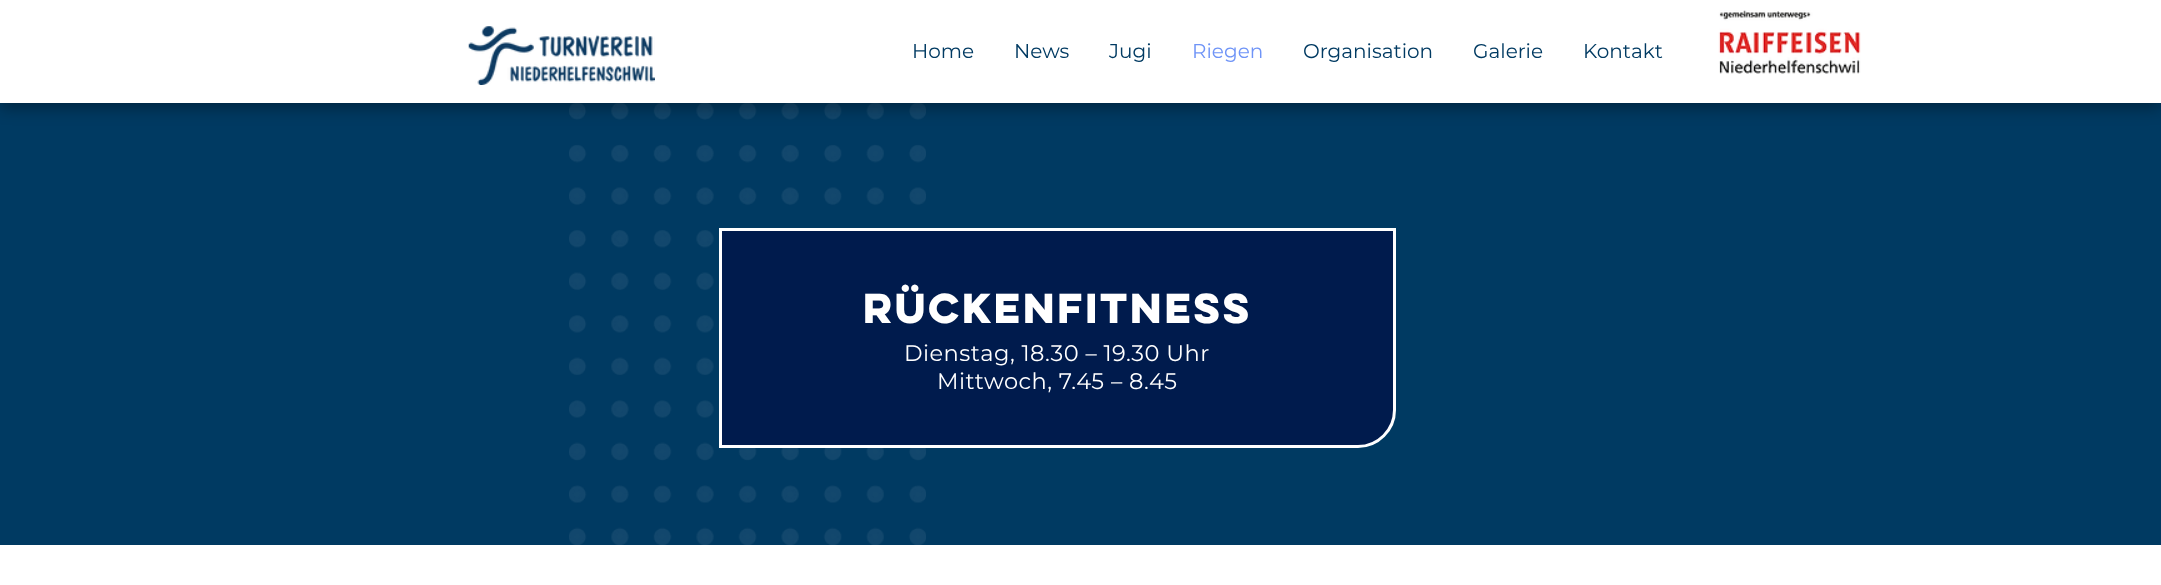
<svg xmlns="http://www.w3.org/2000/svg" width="2161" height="585">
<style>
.a{font:20px Montserrat;fill:#003a62}
.b{font:20px Montserrat;fill:#6f94f7}
.c{font:bold 37.5px 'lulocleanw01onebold';letter-spacing:-5.6px;fill:#fff}
.d{font:22.5px Montserrat;letter-spacing:0.45px;fill:#fff}
</style>
<rect width="100%" height="100%" fill="#003a62"/>
<image href="3.png" x="569" y="103" width="357" height="442"/>
<path fill="#00000059" filter="blur(8px)" d="M0 5h2161v103H0z"/>
<path fill="#fff" d="M0 0h2161v103H0z"/>
<image href="1.png" x="468" y="26" width="187" height="59"/>
<image href="2.png" x="1718" y="10" width="143" height="64"/>
<path fill="#001b4d" stroke="#fff" stroke-width="3" d="M720.5 229.5h674v180.5c0 20-16.5 36.5-36.5 36.5h-637.5z"/>
<path fill="#fff" d="M0 545h2161v40H0z"/>
<text class="a" x="912" y="58">Home</text>
<text class="a" x="1014" y="58">News</text>
<text class="a" x="1109" y="58">Jugi</text>
<text class="b" x="1192" y="58">Riegen</text>
<text class="a" x="1303" y="58">Organisation</text>
<text class="a" x="1473" y="58">Galerie</text>
<text class="a" x="1583" y="58">Kontakt</text>
<text class="c" x="863" y="323">Rückenfitness</text>
<text class="d" x="904" y="361">Dienstag, 18.30 – 19.30 Uhr</text>
<text class="d" x="937" y="389">Mittwoch, 7.45 – 8.45</text>
</svg>
